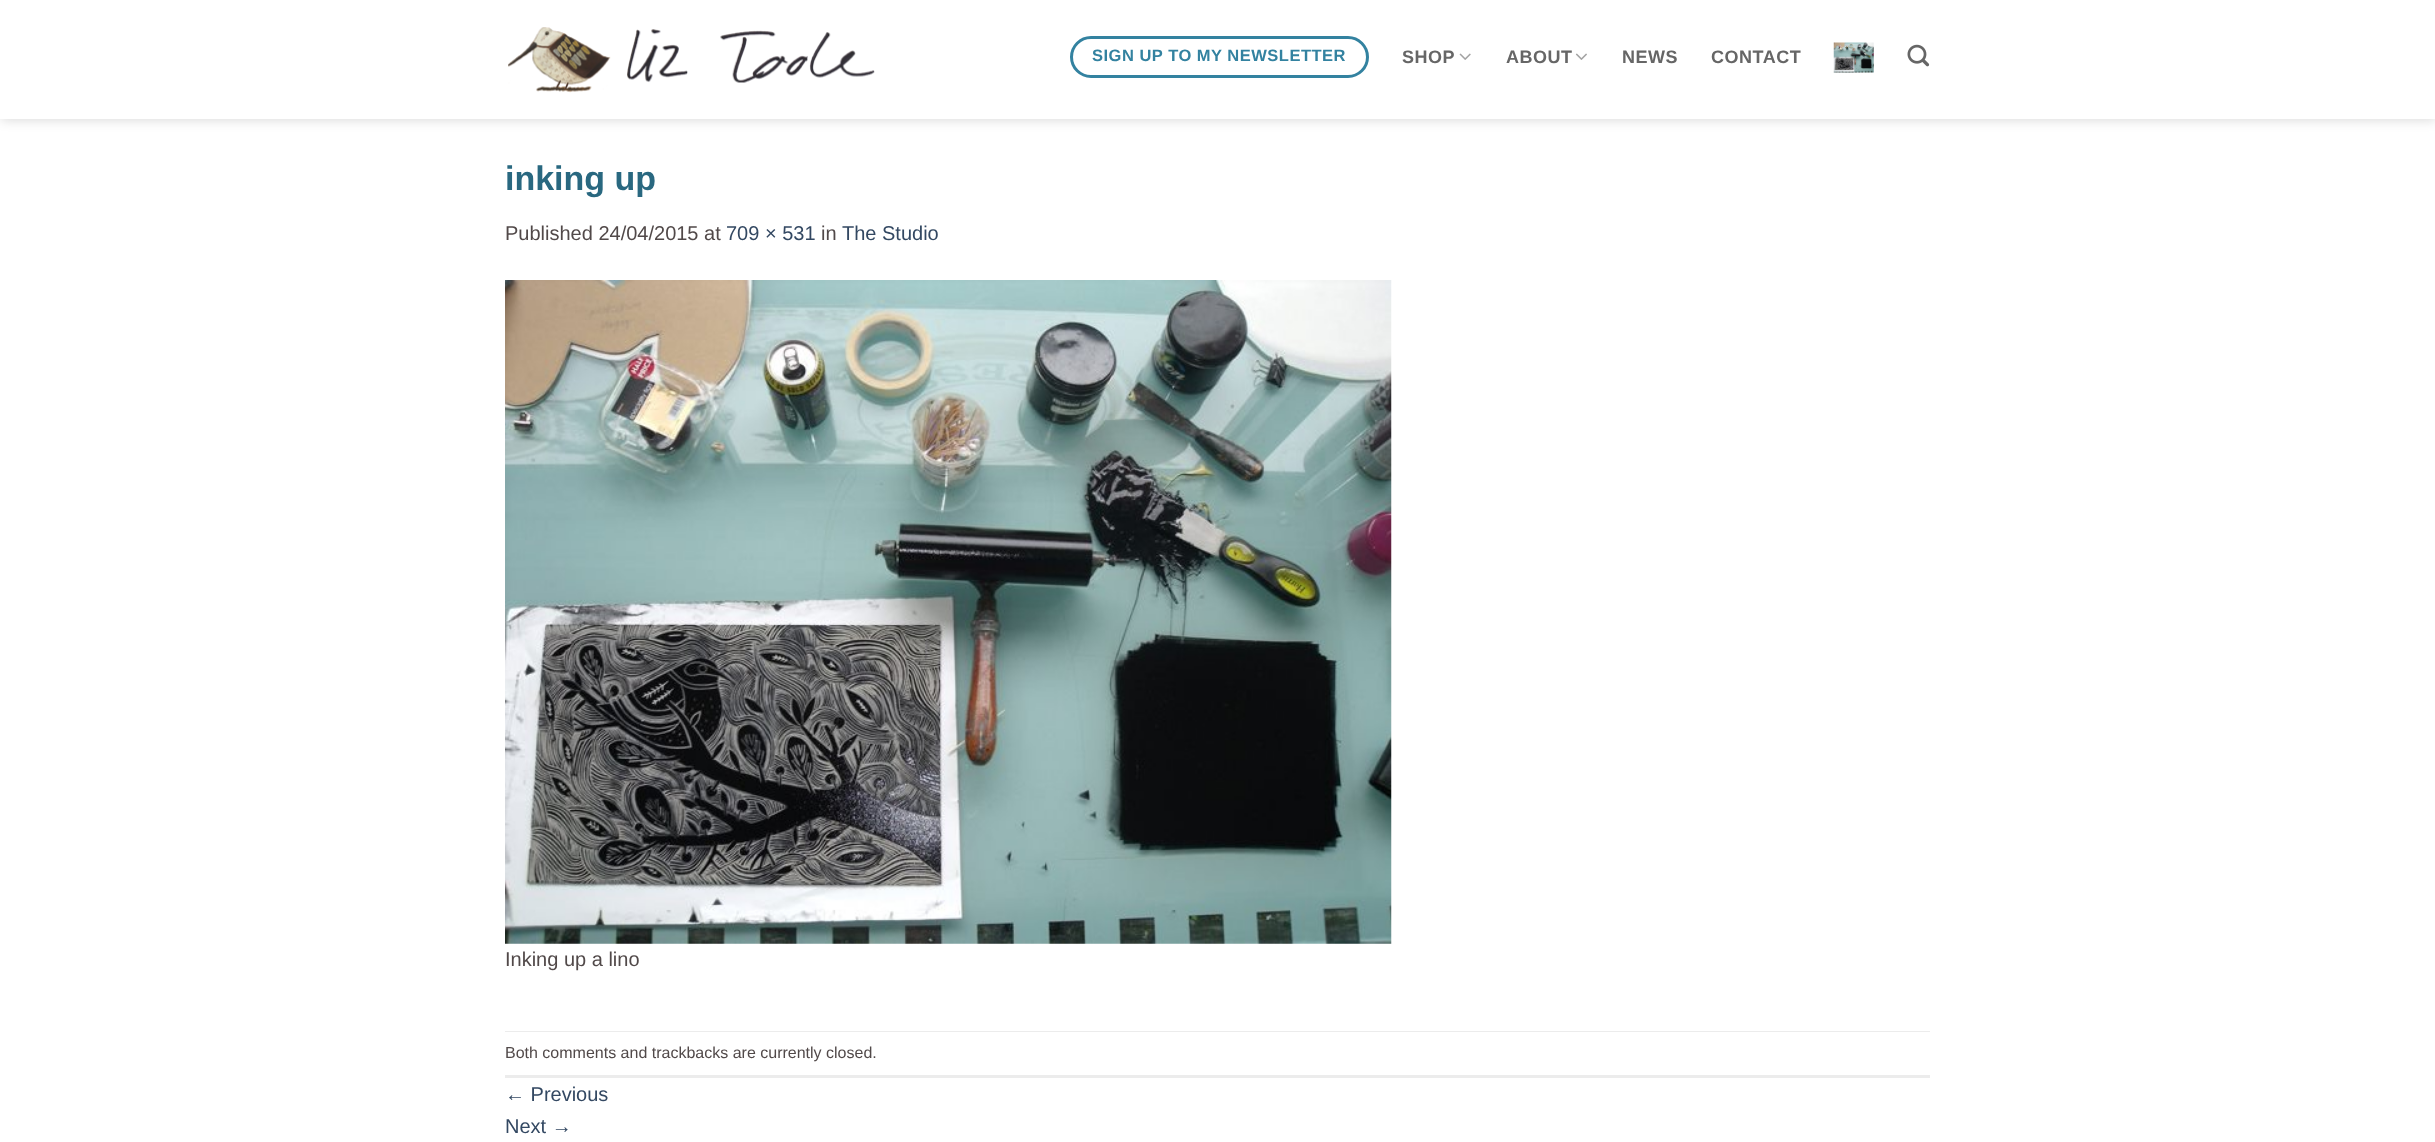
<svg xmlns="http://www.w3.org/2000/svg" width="2435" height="1142">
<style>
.a{font:bold 16.5px Liberation Sans;letter-spacing:0.5px;fill:#3382a0}
.b{font:bold 18px Liberation Sans;letter-spacing:0.5px;fill:#666}
.c{font:bold 34px Liberation Sans;fill:#296880}
.d{font:20px Liberation Sans;fill:#514949}
.e{font:20px Liberation Sans;fill:#334862}
.f{font:16px Liberation Sans;fill:#514949}
</style>
<rect width="100%" height="100%" fill="#fff"/>
<path fill="#00000026" filter="blur(6px)" d="M1 1h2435v119H1z"/>
<path fill="#fff" d="M0 0h2435v119H0z"/>
<image href="1.png" x="508" y="27" width="367" height="66"/>
<rect fill="none" stroke="#3382a0" stroke-width="3" x="1071.5" y="37.5" width="296" height="39" rx="19.5"/>
<image href="2.png" x="1459" y="53" width="12" height="7"/>
<image href="3.png" x="1575" y="53" width="12" height="7"/>
<image href="4.png" x="1833" y="42" width="41" height="31"/>
<image href="5.png" x="1907" y="44" width="23" height="23"/>
<image href="6.png" x="505" y="280" width="887" height="664"/>
<path fill="#ececec" d="M505 1031h1425v1H505z"/>
<path fill="#ececec" d="M505 1075h1425v3H505z"/>
<text class="a" x="1092" y="61">SIGN UP TO MY NEWSLETTER</text>
<text class="b" x="1402" y="63">SHOP</text>
<text class="b" x="1506" y="63">ABOUT</text>
<text class="b" x="1622" y="63">NEWS</text>
<text class="b" x="1711" y="63">CONTACT</text>
<text class="c" x="505" y="190">inking up</text>
<text class="d" x="505" y="240">Published 24/04/2015 at</text>
<text class="e" x="726" y="240">709 × 531</text>
<text class="d" x="821" y="240">in</text>
<text class="e" x="842" y="240">The Studio</text>
<text class="d" x="505" y="966">Inking up a lino</text>
<text class="f" x="505" y="1058">Both comments and trackbacks are currently closed.</text>
<text class="e" x="505" y="1101">← Previous</text>
<text class="e" x="505" y="1133">Next →</text>
</svg>
